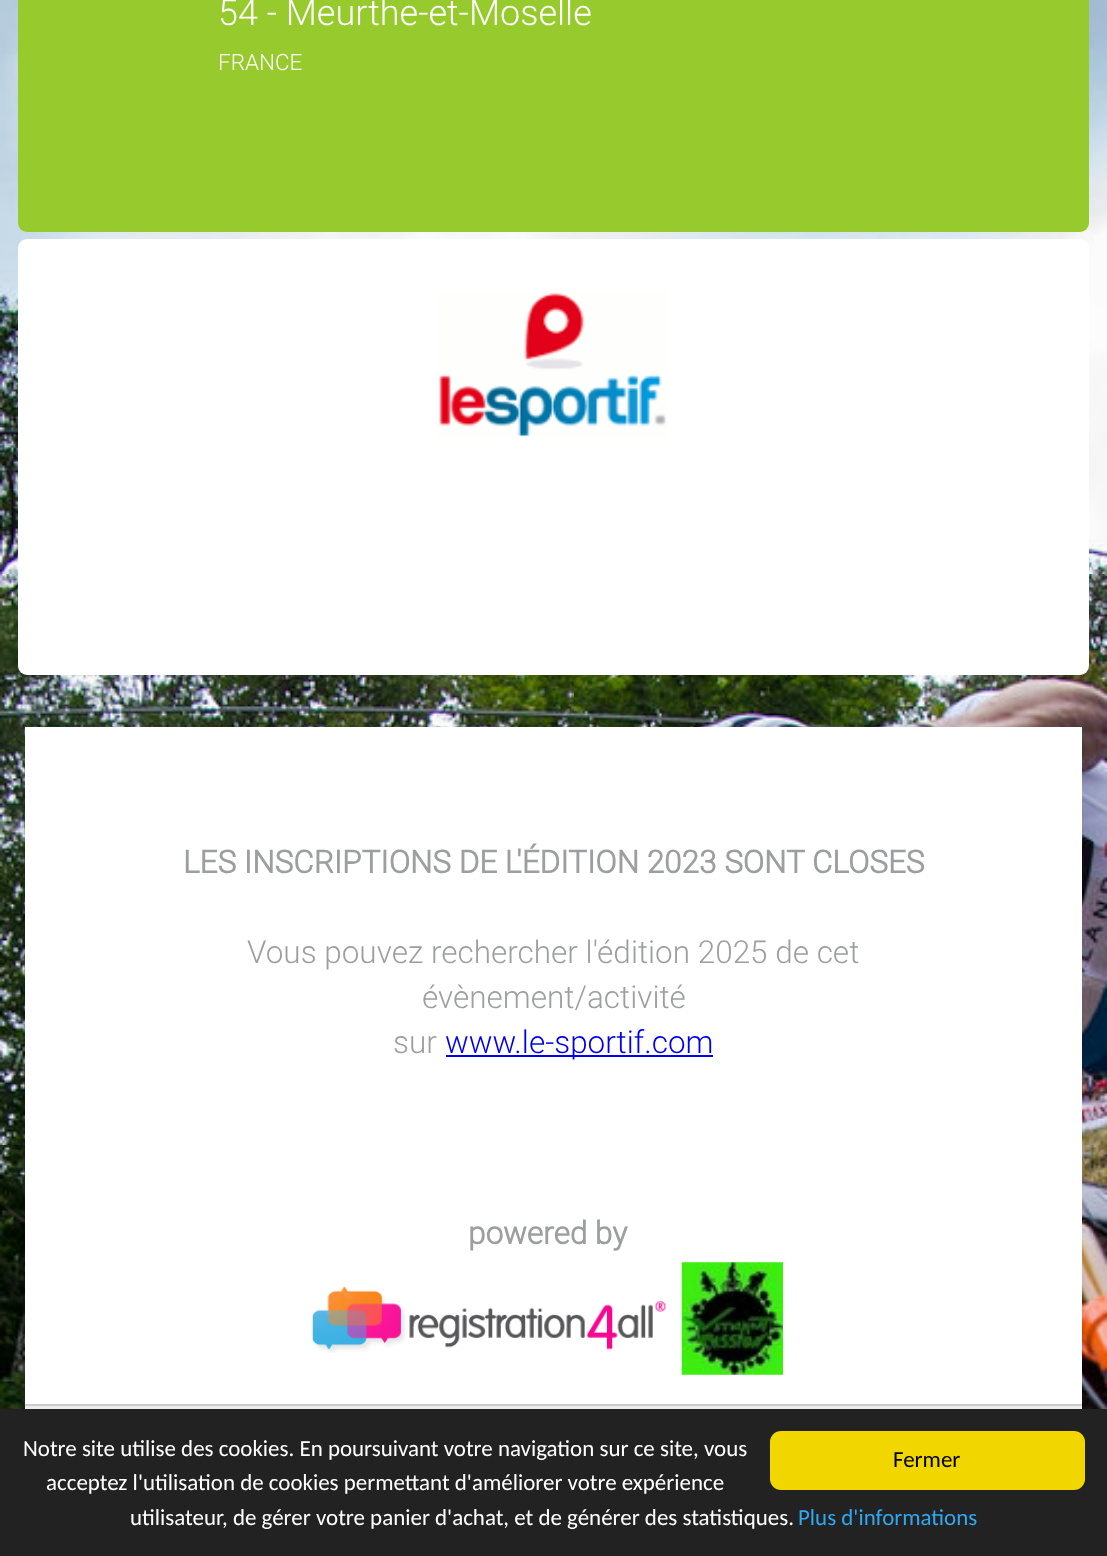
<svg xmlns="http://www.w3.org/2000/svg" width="1107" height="1556">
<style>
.a{font:300 36px Roboto;fill:#fff}
.b{font:300 22.5px Roboto;fill:#fff}
.c{font:bold 31.5px Roboto;fill:#9c9e9f}
.d{font:300 31.5px Roboto;fill:#9c9e9f}
.e{font:300 31.5px Roboto;fill:#00e}
.f{font:22.95px Carlito;fill:#fff}
.g{font:22.95px Carlito;fill:#31a8f0}
.h{font:22.95px Carlito;fill:#000}
</style>
<rect width="100%" height="100%" fill="#fff"/>
<image href="1.png" x="0" y="0" width="1107" height="1409"/>
<rect fill="#96ca2d" x="18" y="-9" width="1071" height="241" rx="9"/>
<rect fill="#fff" x="18" y="239" width="1071" height="436" rx="9"/>
<image href="2.png" x="438" y="291" width="230" height="147"/>
<path fill="#fff" d="M25 727h1057v677H25z"/>
<path fill="#00e" d="M446 1055h267v2H446z"/>
<image href="3.png" x="312" y="1286" width="354" height="67"/>
<image href="4.png" x="681" y="1262" width="102" height="113"/>
<path fill="#ececec" d="M25 1406h1057v3H25z"/>
<path fill="#ccc" d="M25 1404h1057v2H25z"/>
<path fill="#222" d="M0 1409h1107v147H0z"/>
<rect fill="#f1d600" x="770" y="1431" width="315" height="59" rx="11"/>
<text class="a" x="218" y="25">54 - Meurthe-et-Moselle</text>
<text class="b" x="218" y="70">FRANCE</text>
<text class="c" x="183" y="873">LES INSCRIPTIONS DE L'ÉDITION 2023 SONT CLOSES</text>
<text class="d" x="247" y="963">Vous pouvez rechercher l'édition 2025 de cet</text>
<text class="d" x="422" y="1008">évènement/activité</text>
<text class="d" x="393" y="1053">sur</text>
<text class="e" x="445" y="1053">www.le-sportif.com</text>
<text class="c" x="468" y="1244">powered by</text>
<text class="f" x="23" y="1456">Notre site utilise des cookies. En poursuivant votre navigation sur ce site, vous</text>
<text class="f" x="46" y="1490">acceptez l'utilisation de cookies permettant d'améliorer votre expérience</text>
<text class="f" x="130" y="1525">utilisateur, de gérer votre panier d'achat, et de générer des statistiques.</text>
<text class="g" x="798" y="1525">Plus d'informations</text>
<text class="h" x="893" y="1467">Fermer</text>
</svg>
